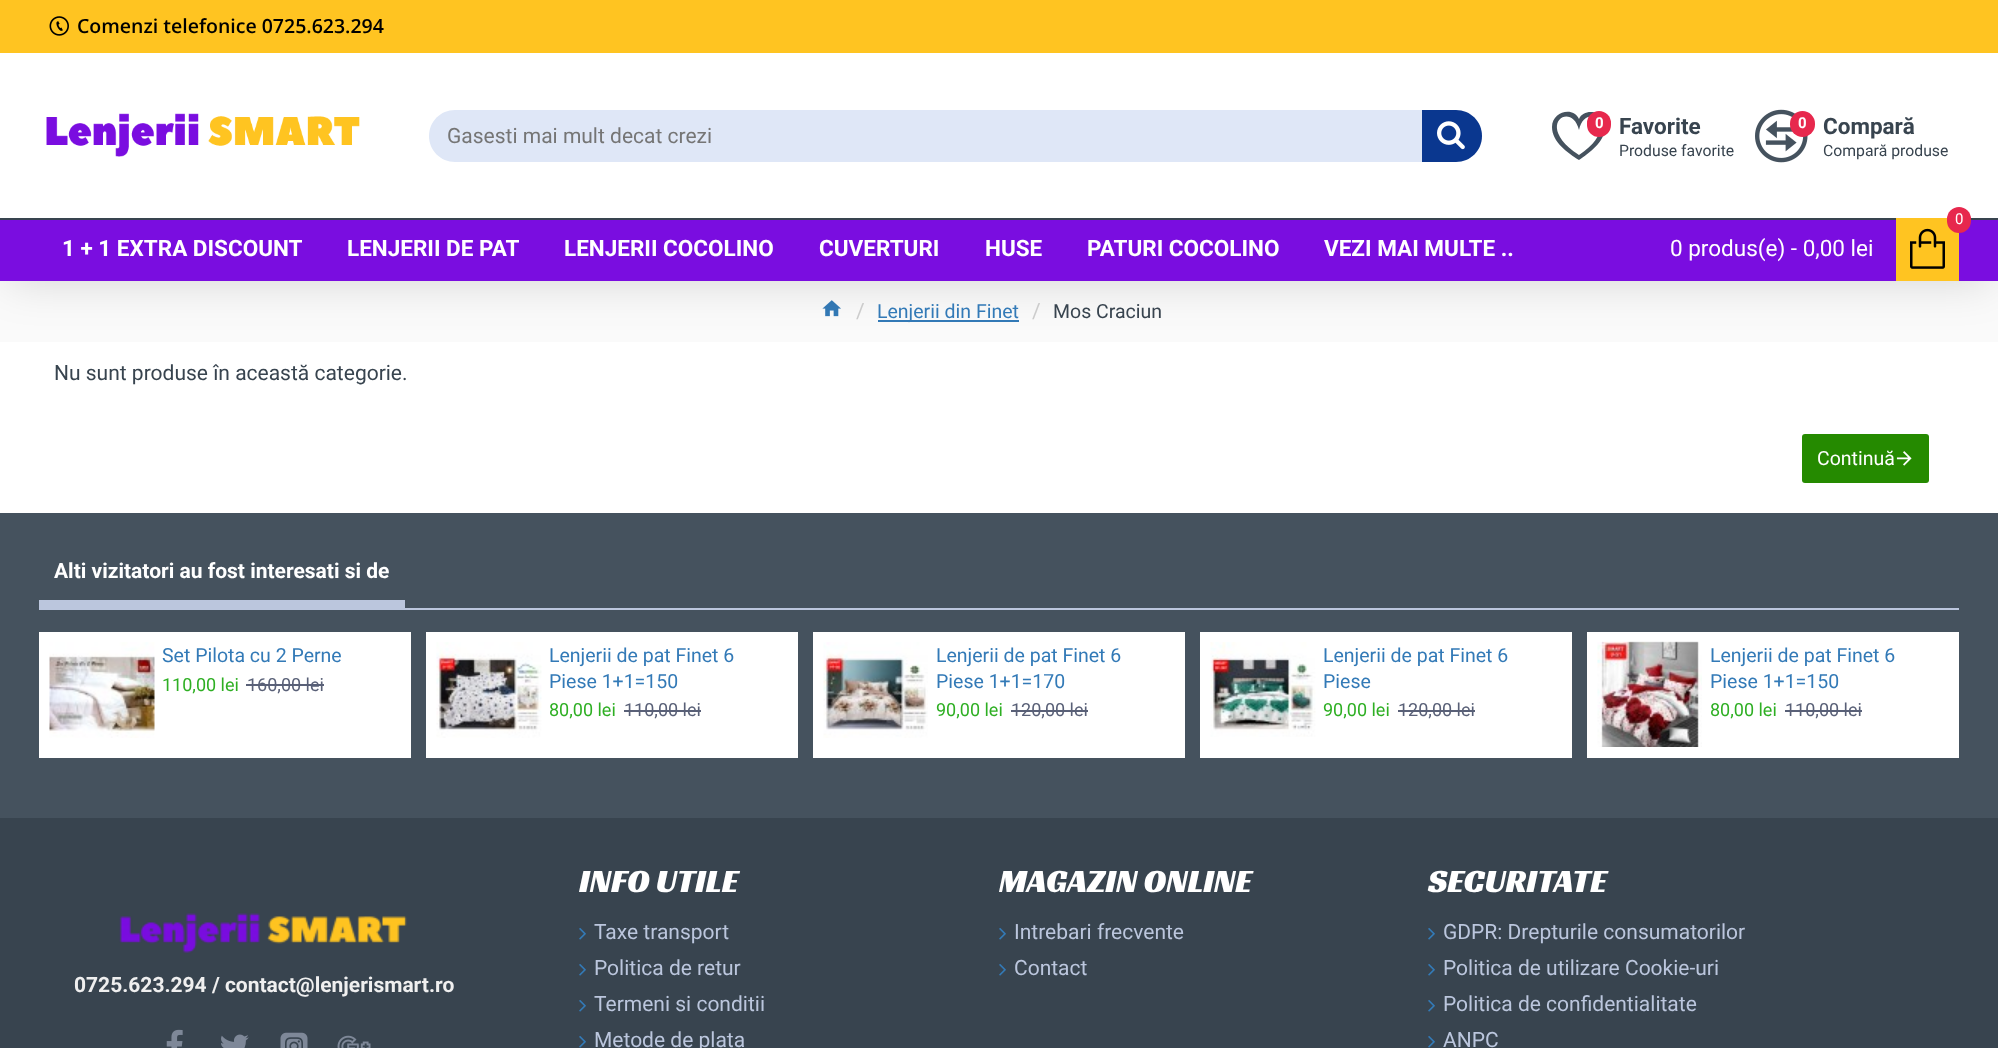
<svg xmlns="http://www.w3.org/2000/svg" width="1998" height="1048">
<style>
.a{font:600 19.5px Open Sans;fill:#000}
.b{font:21px Roboto;fill:#757575}
.c{font:bold 15px Roboto;fill:#fff}
.d{font:bold 22.5px Roboto;fill:#38444f}
.e{font:15.75px Roboto;fill:#38444f}
.f{font:15px Roboto;fill:#fff}
.g{font:22.5px Roboto;fill:#fff}
.h{font:bold 22.5px Roboto;fill:#fff}
.i{font:21px Roboto;fill:#ccc}
.j{font:19.5px Roboto;fill:#337ab7}
.k{font:19.5px Roboto;fill:#38444f}
.l{font:21px Roboto;fill:#38444f}
.m{font:19.5px Roboto;fill:#fff}
.n{font:bold 21px Roboto;fill:#fff}
.o{font:18px Roboto;fill:#2eaf23}
.p{font:18px Roboto;fill:#596077}
.q{font:bold 21px Roboto;fill:#efefef}
.r{font:33px Racing Sans One;fill:#fff}
.s{font:21px Roboto;fill:#bbc6dd}
</style>
<rect width="100%" height="100%" fill="#fff"/>
<path fill="#fafafa" d="M0 281h1998v61H0z"/>
<image href="6.png" x="822" y="300" width="19" height="17"/>
<path fill="#337ab7" d="M878 320h141v2H878z"/>
<path fill="#00000026" filter="blur(22.5px)" d="M8 15h1983v266H8z"/>
<path fill="#fff" d="M0 53h1998v165H0z"/>
<path fill="#ffc421" d="M0 0h1998v53H0z"/>
<image href="1.png" x="49" y="16" width="20" height="20"/>
<image href="2.png" x="46" y="113" width="314" height="44"/>
<path fill="#dfe7f7" d="M455 110h967v52h-967c-14.5 0-26-11.5-26-26c0-14.5 11.5-26 26-26z"/>
<path fill="#0a378f" d="M1422 110h34c14.5 0 26 11.5 26 26c0 14.5-11.5 26-26 26h-34z"/>
<image href="3.png" x="1437" y="121" width="28" height="29"/>
<path fill="#45525e" d="M1579 130c6-30 45-5 0 25c-46-30-7-55 0-25zm-27-3c0 15 16 26 27 33c10-7 26-18 26-33c0-3-1-6-3-9c-5-8-19-8-23 1c-6-13-27-7-27 8z"/>
<rect fill="#e7284d" x="1587" y="111" width="24" height="26" rx="12"/>
<image href="4.png" x="1755" y="109" width="53" height="54"/>
<rect fill="#e7284d" x="1790" y="111" width="25" height="26" rx="12.5"/>
<path fill="#7a0de0" d="M0 220h1998v61H0z"/>
<path fill="#38444f" d="M0 218h1998v2H0z"/>
<path fill="#ffc421" d="M1896 218h63v63H1896z"/>
<rect fill="#e7284d" x="1947" y="207" width="24" height="26" rx="12"/>
<image href="5.png" x="1910" y="228" width="35" height="41"/>
<rect fill="#258a00" x="1802" y="434" width="127" height="49" rx="3"/>
<image href="7.png" x="1896" y="451" width="16" height="15"/>
<path fill="#38444f" d="M0 818h1998v230H0z"/>
<path fill="#45525e" d="M0 513h1998v305H0z"/>
<path fill="#bbc6dd" d="M39 608h1920v2H39z"/>
<path fill="#bbc6dd" d="M39 600h366v8H39z"/>
<path fill="#fff" d="M39 632h372v126H39z"/>
<image href="8.png" x="49" y="642" width="106" height="96"/>
<path fill="#596077" d="M246 684h78v2H246z"/>
<path fill="#fff" d="M426 632h372v126H426z"/>
<image href="9.png" x="436" y="642" width="106" height="96"/>
<path fill="#596077" d="M624 710h77v2H624z"/>
<path fill="#fff" d="M813 632h372v126H813z"/>
<image href="10.png" x="823" y="642" width="105" height="96"/>
<path fill="#596077" d="M1011 710h77v2H1011z"/>
<path fill="#fff" d="M1200 632h372v126H1200z"/>
<image href="11.png" x="1210" y="642" width="106" height="95"/>
<path fill="#596077" d="M1398 710h77v2H1398z"/>
<path fill="#fff" d="M1587 632h372v126H1587z"/>
<image href="12.png" x="1597" y="641" width="105" height="106"/>
<path fill="#596077" d="M1785 710h77v2H1785z"/>
<image href="13.png" x="119" y="913" width="288" height="40"/>
<image href="14.png" x="166" y="1029" width="17" height="19"/>
<image href="15.png" x="221" y="1034" width="28" height="14"/>
<image href="16.png" x="280" y="1032" width="28" height="16"/>
<image href="17.png" x="337" y="1035" width="34" height="13"/>
<image href="18.png" x="579" y="928" width="7" height="12"/>
<image href="18.png" x="579" y="964" width="7" height="12"/>
<image href="18.png" x="579" y="1000" width="7" height="12"/>
<image href="18.png" x="579" y="1036" width="7" height="12"/>
<image href="18.png" x="999" y="928" width="7" height="12"/>
<image href="18.png" x="999" y="964" width="7" height="12"/>
<image href="18.png" x="1428" y="928" width="7" height="12"/>
<image href="18.png" x="1428" y="964" width="7" height="12"/>
<image href="18.png" x="1428" y="1000" width="7" height="12"/>
<image href="18.png" x="1428" y="1036" width="7" height="12"/>
<text class="a" x="77" y="33">Comenzi telefonice 0725.623.294</text>
<text class="b" x="447" y="143">Gasesti mai mult decat crezi</text>
<text class="c" x="1595" y="128">0</text>
<text class="d" x="1619" y="134">Favorite</text>
<text class="e" x="1619" y="156">Produse favorite</text>
<text class="c" x="1798" y="128">0</text>
<text class="d" x="1823" y="134">Compară</text>
<text class="e" x="1823" y="156">Compară produse</text>
<text class="f" x="1955" y="224">0</text>
<text class="g" x="1670" y="256">0 produs(e) - 0,00 lei</text>
<text class="h" x="62" y="256">1 + 1 EXTRA DISCOUNT</text>
<text class="h" x="347" y="256">LENJERII DE PAT</text>
<text class="h" x="564" y="256">LENJERII COCOLINO</text>
<text class="h" x="819" y="256">CUVERTURI</text>
<text class="h" x="985" y="256">HUSE</text>
<text class="h" x="1087" y="256">PATURI COCOLINO</text>
<text class="h" x="1324" y="256">VEZI MAI MULTE ..</text>
<text class="i" x="856" y="318">/</text>
<text class="j" x="877" y="318">Lenjerii din Finet</text>
<text class="i" x="1032" y="318">/</text>
<text class="k" x="1053" y="318">Mos Craciun</text>
<text class="l" x="54" y="380">Nu sunt produse în această categorie.</text>
<text class="m" x="1817" y="465">Continuă</text>
<text class="n" x="54" y="578">Alti vizitatori au fost interesati si de</text>
<text class="j" x="162" y="662">Set Pilota cu 2 Perne</text>
<text class="o" x="162" y="691">110,00 lei</text>
<text class="p" x="247" y="691">160,00 lei</text>
<text class="j" x="549" y="662">Lenjerii de pat Finet 6</text>
<text class="j" x="549" y="688">Piese 1+1=150</text>
<text class="o" x="549" y="716">80,00 lei</text>
<text class="p" x="624" y="716">110,00 lei</text>
<text class="j" x="936" y="662">Lenjerii de pat Finet 6</text>
<text class="j" x="936" y="688">Piese 1+1=170</text>
<text class="o" x="936" y="716">90,00 lei</text>
<text class="p" x="1011" y="716">120,00 lei</text>
<text class="j" x="1323" y="662">Lenjerii de pat Finet 6</text>
<text class="j" x="1323" y="688">Piese</text>
<text class="o" x="1323" y="716">90,00 lei</text>
<text class="p" x="1398" y="716">120,00 lei</text>
<text class="j" x="1710" y="662">Lenjerii de pat Finet 6</text>
<text class="j" x="1710" y="688">Piese 1+1=150</text>
<text class="o" x="1710" y="716">80,00 lei</text>
<text class="p" x="1785" y="716">110,00 lei</text>
<text class="q" x="74" y="992">0725.623.294 / contact@lenjerismart.ro</text>
<text class="r" x="579" y="892">INFO UTILE</text>
<text class="s" x="594" y="939">Taxe transport</text>
<text class="s" x="594" y="975">Politica de retur</text>
<text class="s" x="594" y="1011">Termeni si conditii</text>
<text class="s" x="594" y="1047">Metode de plata</text>
<text class="r" x="999" y="892">MAGAZIN ONLINE</text>
<text class="s" x="1014" y="939">Intrebari frecvente</text>
<text class="s" x="1014" y="975">Contact</text>
<text class="r" x="1428" y="892">SECURITATE</text>
<text class="s" x="1443" y="939">GDPR: Drepturile consumatorilor</text>
<text class="s" x="1443" y="975">Politica de utilizare Cookie-uri</text>
<text class="s" x="1443" y="1011">Politica de confidentialitate</text>
<text class="s" x="1443" y="1047">ANPC</text>
</svg>
